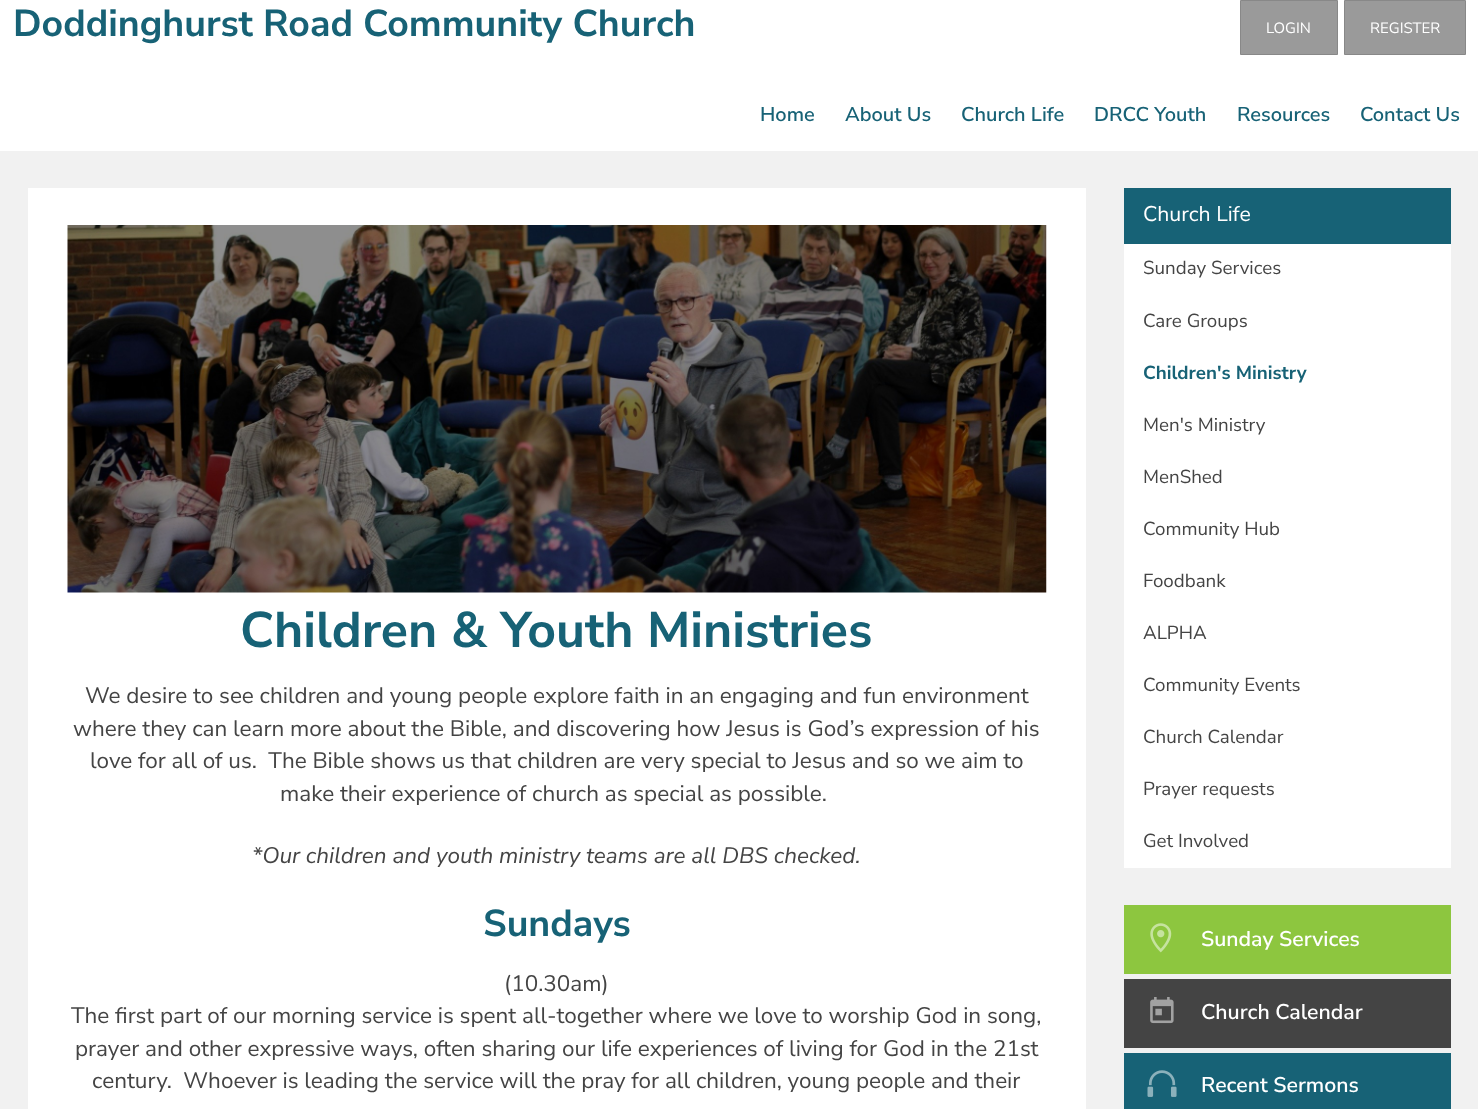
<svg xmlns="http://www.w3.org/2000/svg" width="1478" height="1109">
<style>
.a{font:bold 37.5px Nunito Sans;fill:#176276}
.b{font:15px Nunito Sans;fill:#fff}
.c{font:600 20px Nunito Sans;fill:#176276}
.d{font:bold 50px Nunito Sans;fill:#176276}
.e{font:22.5px Nunito Sans;fill:#444}
.f{font:italic 200 22.5px Nunito Sans;fill:#444}
.g{font:21.25px Nunito Sans;fill:#fff}
.h{font:18.75px Nunito Sans;fill:#444}
.i{font:bold 18.75px Nunito Sans;fill:#176276}
.j{font:600 21.25px Nunito Sans;fill:#fff}
</style>
<rect width="100%" height="100%" fill="#f1f1f1"/>
<path fill="#fff" d="M0 0h1478v151H0z"/>
<path fill="#9a9a9a" stroke="#888" d="M1240.5 0.5h97v54H1240.5z"/>
<path fill="#9a9a9a" stroke="#888" d="M1344.5 0.5h121v54H1344.5z"/>
<path fill="#fff" d="M28 188h1058v921H28z"/>
<image href="1.png" x="67" y="225" width="980" height="368"/>
<path fill="#fff" d="M1124 244h327v624H1124z"/>
<path fill="#176276" d="M1124 188h327v56H1124z"/>
<path fill="#8dc63f" d="M1124 905h327v69H1124z"/>
<image href="2.png" x="1150" y="923" width="22" height="30"/>
<path fill="#444" d="M1124 979h327v69H1124z"/>
<image href="3.png" x="1150" y="997" width="24" height="27"/>
<path fill="#176276" d="M1124 1053h327v56H1124z"/>
<image href="4.png" x="1147" y="1070" width="30" height="27"/>
<text class="a" x="13" y="36">Doddinghurst Road Community Church</text>
<text class="b" x="1266" y="33">LOGIN</text>
<text class="b" x="1370" y="33">REGISTER</text>
<text class="c" x="760" y="121">Home</text>
<text class="c" x="845" y="121">About Us</text>
<text class="c" x="961" y="121">Church Life</text>
<text class="c" x="1094" y="121">DRCC Youth</text>
<text class="c" x="1237" y="121">Resources</text>
<text class="c" x="1360" y="121">Contact Us</text>
<text class="d" x="240" y="647">Children &amp; Youth Ministries</text>
<text class="e" x="85" y="703">We desire to see children and young people explore faith in an engaging and fun environment</text>
<text class="e" x="73" y="736">where they can learn more about the Bible, and discovering how Jesus is God’s expression of his</text>
<text class="e" xml:space="preserve" x="90" y="768">love for all of us.  The Bible shows us that children are very special to Jesus and so we aim to</text>
<text class="e" x="280" y="801">make their experience of church as special as possible.</text>
<text class="f" x="252" y="863">*Our children and youth ministry teams are all DBS checked.</text>
<text class="a" x="483" y="936">Sundays</text>
<text class="e" x="504" y="991">(10.30am)</text>
<text class="e" x="71" y="1023">The first part of our morning service is spent all-together where we love to worship God in song,</text>
<text class="e" x="75" y="1056">prayer and other expressive ways, often sharing our life experiences of living for God in the 21st</text>
<text class="e" xml:space="preserve" x="92" y="1088">century.  Whoever is leading the service will the pray for all children, young people and their</text>
<text class="g" x="1143" y="221">Church Life</text>
<text class="h" x="1143" y="274">Sunday Services</text>
<text class="h" x="1143" y="327">Care Groups</text>
<text class="i" x="1143" y="379">Children's Ministry</text>
<text class="h" x="1143" y="431">Men's Ministry</text>
<text class="h" x="1143" y="483">MenShed</text>
<text class="h" x="1143" y="535">Community Hub</text>
<text class="h" x="1143" y="587">Foodbank</text>
<text class="h" x="1143" y="639">ALPHA</text>
<text class="h" x="1143" y="691">Community Events</text>
<text class="h" x="1143" y="743">Church Calendar</text>
<text class="h" x="1143" y="795">Prayer requests</text>
<text class="h" x="1143" y="847">Get Involved</text>
<text class="j" x="1201" y="946">Sunday Services</text>
<text class="j" x="1201" y="1019">Church Calendar</text>
<text class="j" x="1201" y="1092">Recent Sermons</text>
</svg>
